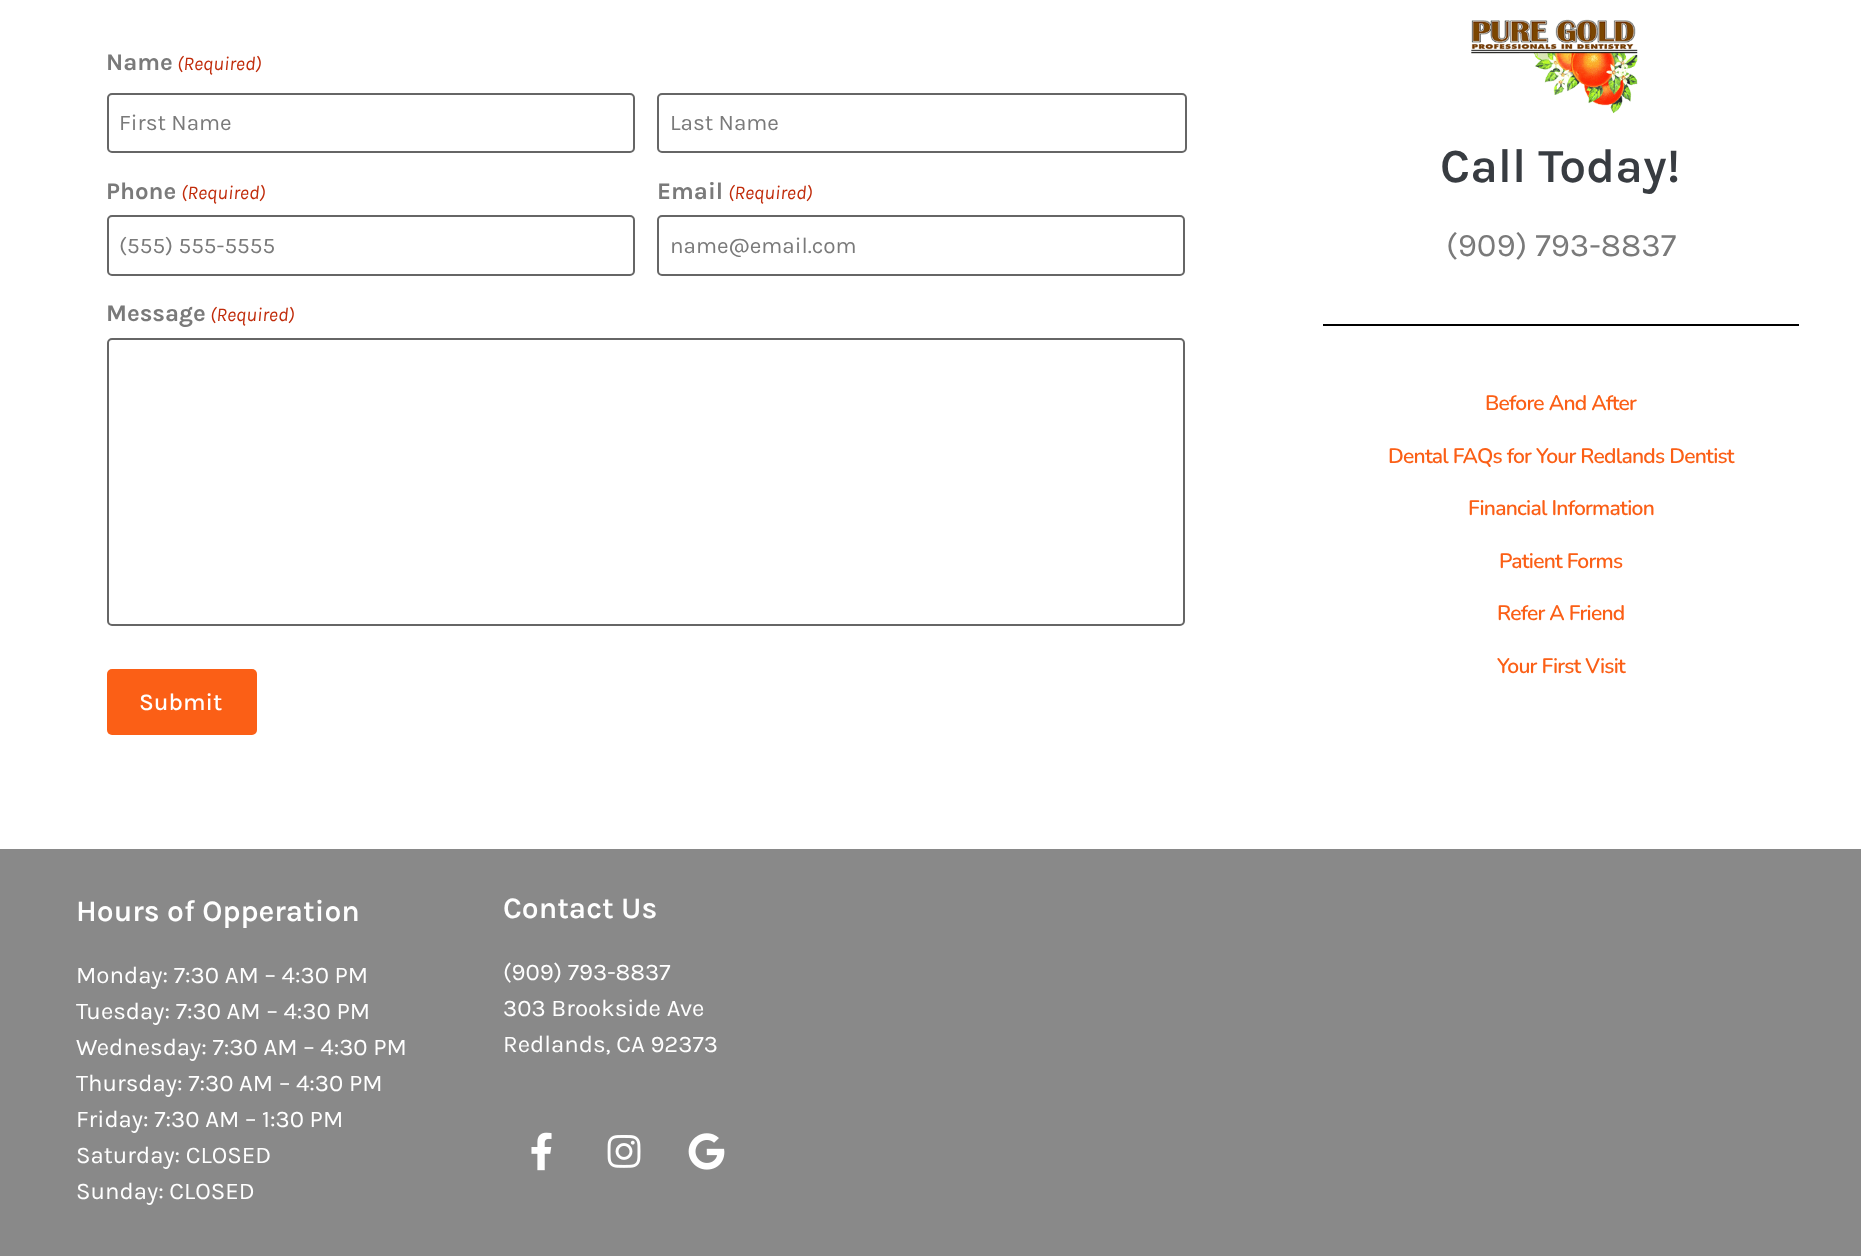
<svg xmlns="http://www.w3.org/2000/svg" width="1861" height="1256">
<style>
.a{font:bold 24px Karla;fill:#7a7a7a}
.b{font:italic 19.5px Karla;fill:#c02b0a}
.c{font:22.5px Karla;fill:#7a7a7a}
.d{font:500 24px Karla;fill:#fff}
.e{font:600 48px Karla;fill:#383c41}
.f{font:33px Karla;fill:#7a7a7a}
.g{font:600 21px Nunito;letter-spacing:-0.75px;fill:#fb5f16}
.h{font:600 30px Karla;fill:#fff}
.i{font:24px Karla;fill:#fff}
</style>
<rect width="100%" height="100%" fill="#fff"/>
<rect fill="none" stroke="#666" stroke-width="2" x="108" y="94" width="526" height="58" rx="4"/>
<rect fill="none" stroke="#666" stroke-width="2" x="658" y="94" width="528" height="58" rx="4"/>
<rect fill="none" stroke="#666" stroke-width="2" x="108" y="216" width="526" height="59" rx="4"/>
<rect fill="none" stroke="#666" stroke-width="2" x="658" y="216" width="526" height="59" rx="4"/>
<rect fill="none" stroke="#666" stroke-width="2" x="108" y="339" width="1076" height="286" rx="4"/>
<rect fill="#fb5f16" x="107" y="669" width="150" height="66" rx="5"/>
<image href="1.png" x="1471" y="19" width="167" height="95"/>
<path fill="#000" d="M1323 324h476v2H1323z"/>
<path fill="#898989" d="M0 849h1861v407H0z"/>
<image href="2.png" x="531" y="1132" width="21" height="39"/>
<image href="3.png" x="607" y="1135" width="34" height="33"/>
<image href="4.png" x="688" y="1133" width="37" height="37"/>
<text class="a" x="106" y="70">Name</text>
<text class="b" x="177" y="70">(Required)</text>
<text class="c" x="119" y="130">First Name</text>
<text class="c" x="670" y="130">Last Name</text>
<text class="a" x="106" y="199">Phone</text>
<text class="b" x="181" y="199">(Required)</text>
<text class="c" x="119" y="253">(555) 555-5555</text>
<text class="a" x="657" y="199">Email</text>
<text class="b" x="728" y="199">(Required)</text>
<text class="c" x="670" y="253">name@email.com</text>
<text class="a" x="106" y="321">Message</text>
<text class="b" x="210" y="321">(Required)</text>
<text class="d" x="139" y="710">Submit</text>
<text class="e" x="1440" y="182">Call Today!</text>
<text class="f" x="1446" y="256">(909) 793-8837</text>
<text class="g" x="1485" y="410">Before And After</text>
<text class="g" x="1388" y="463">Dental FAQs for Your Redlands Dentist</text>
<text class="g" x="1468" y="515">Financial Information</text>
<text class="g" x="1499" y="568">Patient Forms</text>
<text class="g" x="1497" y="620">Refer A Friend</text>
<text class="g" x="1497" y="673">Your First Visit</text>
<text class="h" x="76" y="921">Hours of Opperation</text>
<text class="i" x="76" y="983">Monday: 7:30 AM – 4:30 PM</text>
<text class="i" x="76" y="1019">Tuesday: 7:30 AM – 4:30 PM</text>
<text class="i" x="76" y="1055">Wednesday: 7:30 AM – 4:30 PM</text>
<text class="i" x="76" y="1091">Thursday: 7:30 AM – 4:30 PM</text>
<text class="i" x="76" y="1127">Friday: 7:30 AM – 1:30 PM</text>
<text class="i" x="76" y="1163">Saturday: CLOSED</text>
<text class="i" x="76" y="1199">Sunday: CLOSED</text>
<text class="h" x="503" y="918">Contact Us</text>
<text class="i" x="503" y="980">(909) 793-8837</text>
<text class="i" x="503" y="1016">303 Brookside Ave</text>
<text class="i" x="503" y="1052">Redlands, CA 92373</text>
</svg>
